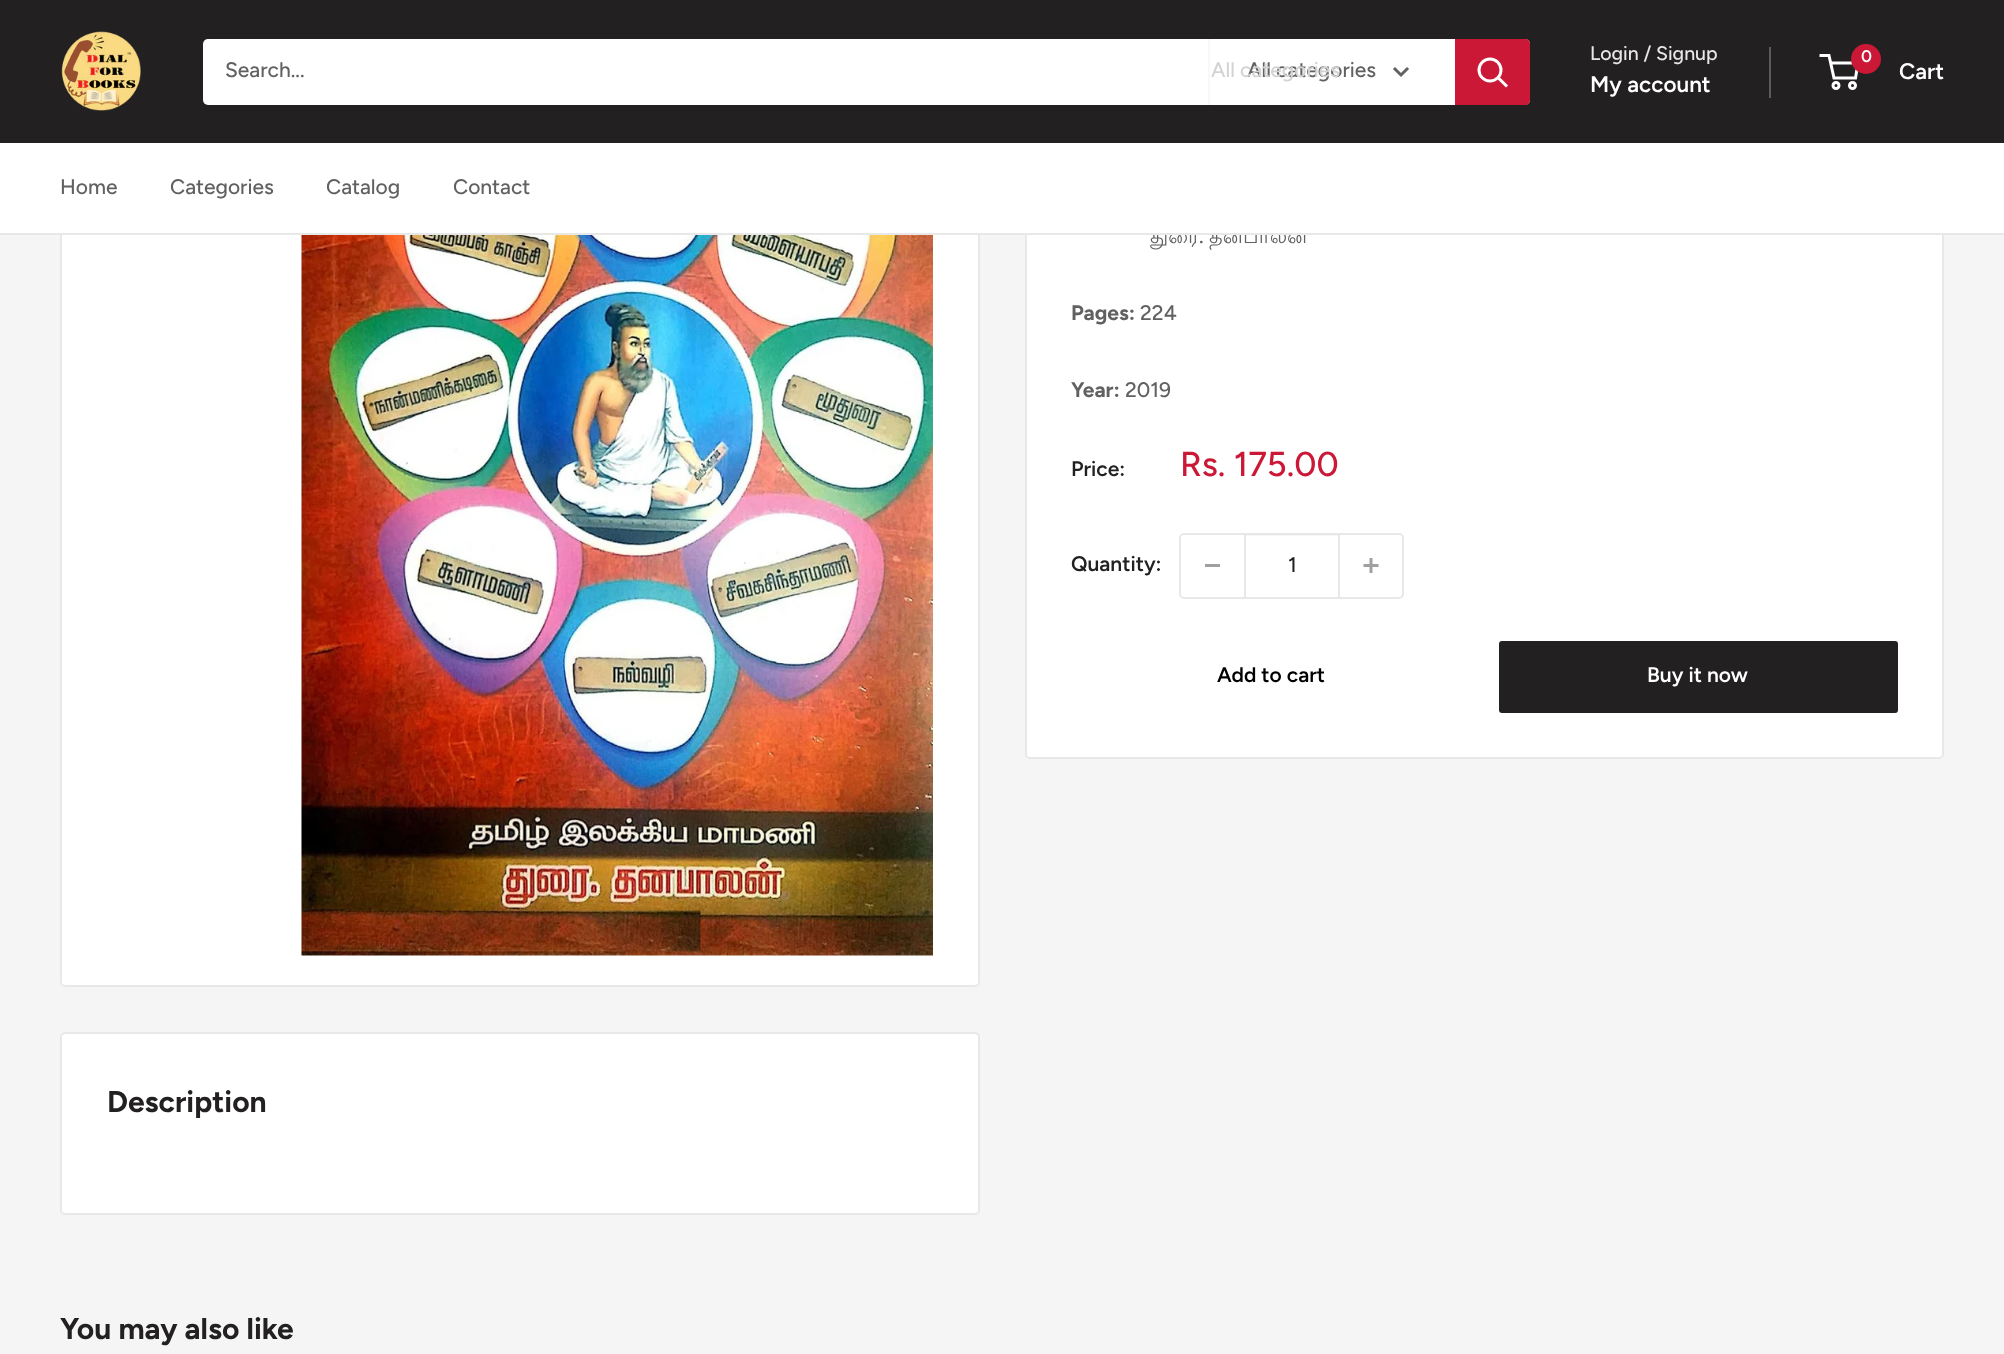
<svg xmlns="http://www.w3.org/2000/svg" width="2004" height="1354">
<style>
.a{font:500 21px Figtree;fill:#616161}
.b{font:500 21px Figtree;fill:#d3d3d3}
.c{font:500 19.5px Figtree;fill:#e8e8e8}
.d{font:600 22.5px Figtree;fill:#fff}
.e{font:600 17px Figtree;fill:#fff}
.f{font:21px Lohit Tamil;fill:#616161}
.g{font:bold 21px Figtree;fill:#616161}
.h{font:600 21px Figtree;fill:#222021}
.i{font:500 34.5px Figtree;fill:#cb1836}
.j{font:500 21px Figtree;fill:#222021}
.k{font:600 21px Figtree;fill:#000}
.l{font:600 21px Figtree;fill:#fff}
.m{font:bold 30px Figtree;fill:#222021}
</style>
<rect width="100%" height="100%" fill="#f5f5f5"/>
<rect fill="#fff" stroke="#e8e8e8" stroke-width="2" x="61" y="-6" width="918" height="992" rx="4"/>
<rect fill="#fff" stroke="#e8e8e8" stroke-width="2" x="1026" y="1" width="917" height="757" rx="4"/>
<path fill="#222021" d="M0 0h2004v143H0z"/>
<image href="1.png" x="61" y="31" width="80" height="80"/>
<rect fill="#fff" x="203" y="39" width="1327" height="66" rx="5"/>
<path fill="#f8f8f8" d="M1208 39h2v66H1208z"/>
<path fill="none" stroke="#616161" stroke-width="3" stroke-linecap="square" d="M1407 69l-6 6l-6-6"/>
<path fill="#cb1836" d="M1455 39h70c3 0 5 2 5 5v56c0 3-2 5-5 5h-70z"/>
<path fill="none" stroke="#fff" stroke-width="3" stroke-linecap="square" d="M1506 85.5l-7.5-7.5"/>
<circle fill="none" stroke="#fff" stroke-width="3" cx="1490" cy="70" r="11"/>
<path fill="#5d5c5d" d="M1769 47h2v51H1769z"/>
<circle fill="none" stroke="#fff" stroke-width="3" cx="1836" cy="85.5" r="3"/>
<circle fill="none" stroke="#fff" stroke-width="3" cx="1852.5" cy="85.5" r="3"/>
<path fill="none" stroke="#fff" stroke-width="3" d="M1830.5 63h27.5l-2.5 15h-21.5l-5-22.5h-9.5"/>
<circle fill="#cb1836" cx="1866" cy="59" r="15"/>
<image href="2.png" x="301" y="235" width="632" height="721"/>
<rect fill="none" stroke="#e8e8e8" stroke-width="2" x="1180" y="534" width="223" height="64" rx="4"/>
<path fill="#a0a0a0" d="M1205 564h15v3H1205z"/>
<path fill="#e8e8e866" d="M1245 535h93v1H1245z"/>
<path fill="#e8e8e8" d="M1338 534h2v63H1338z"/>
<path fill="#e8e8e8" d="M1244 534h2v63H1244z"/>
<image href="3.png" x="1363" y="558" width="16" height="15"/>
<rect fill="#222021" x="1499" y="641" width="399" height="72" rx="3"/>
<rect fill="#fff" stroke="#e8e8e8" stroke-width="2" x="61" y="1033" width="918" height="181" rx="4"/>
<text class="a" x="225" y="77">Search...</text>
<text class="a" x="1247" y="77">All categories</text>
<text class="b" x="1211" y="77">All categories</text>
<text class="c" x="1590" y="60">Login / Signup</text>
<text class="d" x="1590" y="92">My account</text>
<text class="e" x="1861" y="62">0</text>
<text class="d" x="1899" y="79">Cart</text>
<text class="f" x="1150" y="243">துரை</text>
<text class="a" x="1199" y="243">.</text>
<text class="f" x="1209" y="243">தனபாலன்</text>
<path fill="#fff" d="M0 143h2004v90H0z"/>
<text class="a" x="453" y="194">Contact</text>
<text class="a" x="326" y="194">Catalog</text>
<text class="a" x="170" y="194">Categories</text>
<text class="a" x="60" y="194">Home</text>
<path fill="#e8e8e8" d="M0 233h2004v2H0z"/>
<text class="g" x="1071" y="320">Pages:</text>
<text class="a" x="1140" y="320">224</text>
<text class="g" x="1071" y="397">Year:</text>
<text class="a" x="1125" y="397">2019</text>
<text class="h" x="1071" y="476">Price:</text>
<text class="i" x="1180" y="476">Rs. 175.00</text>
<text class="h" x="1071" y="571">Quantity:</text>
<text class="j" x="1288" y="572">1</text>
<text class="k" x="1217" y="682">Add to cart</text>
<text class="l" x="1647" y="682">Buy it now</text>
<text class="m" x="107" y="1112">Description</text>
<text class="m" x="60" y="1339">You may also like</text>
</svg>
